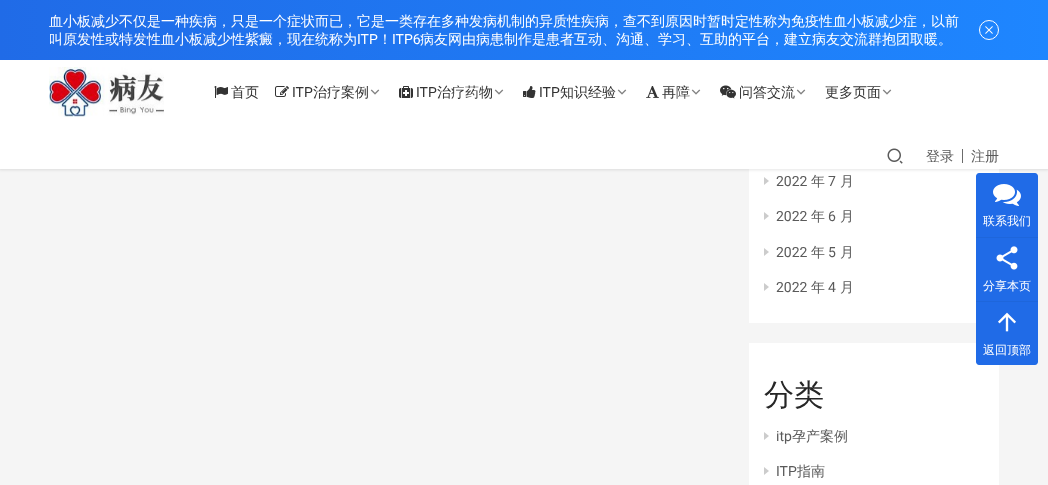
<svg xmlns="http://www.w3.org/2000/svg" width="1048" height="485">
<style>
.a{font:500 14px WenQuanYi Zen Hei;fill:#fff}
.b{font:14px Roboto;fill:#fff}
.c{font:500 14px WenQuanYi Zen Hei;fill:#333}
.d{font:14px Roboto;fill:#333}
.e{font:500 14px WenQuanYi Zen Hei;fill:#5a5a5a}
.f{font:14px Roboto;fill:#5a5a5a}
.g{font:500 30px WenQuanYi Zen Hei;fill:#262626}
.h{font:500 12px WenQuanYi Zen Hei;fill:#fff}
</style>
<defs>
<linearGradient id="g1" gradientUnits="userSpaceOnUse" x1="0" y1="30" x2="1048" y2="30"><stop offset="0" stop-color="#206be7"/><stop offset="1" stop-color="#1e86ff"/></linearGradient>
</defs>
<rect width="100%" height="100%" fill="#f5f5f5"/>
<path fill="#fff" d="M749 169h250v154H749z"/>
<path fill="#0000001a" filter="blur(1.5px)" d="M-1 59h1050v111H-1z"/>
<path fill="url(#g1)" d="M0 0h1048v60H0z"/>
<circle fill="none" stroke="#fff" cx="989" cy="30" r="9.5"/>
<image href="1.png" x="985" y="26" width="8" height="8"/>
<path fill="#fff" d="M0 60h1048v109H0z"/>
<image href="2.png" x="49" y="67" width="115" height="50"/>
<image href="3.png" x="214" y="86" width="14" height="12"/>
<image href="4.png" x="275" y="86" width="14" height="11"/>
<image href="5.png" x="370" y="89" width="10" height="6"/>
<image href="6.png" x="399" y="86" width="14" height="12"/>
<image href="5.png" x="494" y="89" width="10" height="6"/>
<image href="7.png" x="523" y="86" width="13" height="12"/>
<image href="5.png" x="617" y="89" width="10" height="6"/>
<image href="8.png" x="646" y="86" width="13" height="12"/>
<image href="5.png" x="691" y="89" width="10" height="6"/>
<image href="9.png" x="720" y="85" width="16" height="14"/>
<image href="5.png" x="796" y="89" width="10" height="6"/>
<image href="5.png" x="882" y="89" width="10" height="6"/>
<image href="10.png" x="887" y="148" width="16" height="16"/>
<path fill="#6b6b6b" d="M962 149h1v14H962z"/>
<path fill="#ccc" d="M764 185v-8l5 4z"/>
<path fill="#ccc" d="M764 220v-8l5 4z"/>
<path fill="#ccc" d="M764 256v-8l5 4z"/>
<path fill="#ccc" d="M764 291v-8l5 4z"/>
<path fill="#fff" d="M749 343h250v142H749z"/>
<path fill="#ccc" d="M764 440v-8l5 4z"/>
<path fill="#ccc" d="M764 475v-8l5 4z"/>
<path fill="#206be7" d="M979 173h56c1.5 0 3 1.5 3 3v61h-62v-61c0-1.5 1.5-3 3-3z"/>
<image href="11.png" x="993" y="184" width="28" height="22"/>
<path fill="#206be7" d="M976 238h62v63H976z"/>
<path fill="#1e66db" d="M976 237h62v1H976z"/>
<image href="12.png" x="996" y="246" width="22" height="24"/>
<path fill="#206be7" d="M976 301h62v61c0 1.5-1.5 3-3 3h-56c-1.5 0-3-1.5-3-3z"/>
<path fill="#1e66db" d="M976 301h62v1H976z"/>
<image href="13.png" x="998" y="312" width="18" height="20"/>
<text class="a" x="49" y="26">血小板减少不仅是一种疾病，只是一个症状而已，它是一类存在多种发病机制的异质性疾病，查不到原因时暂时定性称为免疫性血小板减少症，以前</text>
<text class="a" x="49" y="44">叫原发性或特发性血小板减少性紫癜，现在统称为</text>
<text class="b" x="357" y="44">ITP</text>
<text class="a" x="378" y="44">！</text>
<text class="b" x="392" y="44">ITP6</text>
<text class="a" x="420" y="44">病友网由病患制作是患者互动、沟通、学习、互助的平台，建立病友交流群抱团取暖。</text>
<text class="c" x="231" y="97">首页</text>
<text class="d" x="292" y="97">ITP</text>
<text class="c" x="313" y="97">治疗案例</text>
<text class="d" x="416" y="97">ITP</text>
<text class="c" x="437" y="97">治疗药物</text>
<text class="d" x="539" y="97">ITP</text>
<text class="c" x="560" y="97">知识经验</text>
<text class="c" x="662" y="97">再障</text>
<text class="c" x="739" y="97">问答交流</text>
<text class="c" x="825" y="97">更多页面</text>
<text class="e" x="926" y="161">登录</text>
<text class="e" x="971" y="161">注册</text>
<text class="f" x="776" y="186">2022</text>
<text class="e" x="811" y="186">年</text>
<text class="f" x="828" y="186">7</text>
<text class="e" x="840" y="186">月</text>
<text class="f" x="776" y="221">2022</text>
<text class="e" x="811" y="221">年</text>
<text class="f" x="828" y="221">6</text>
<text class="e" x="840" y="221">月</text>
<text class="f" x="776" y="257">2022</text>
<text class="e" x="811" y="257">年</text>
<text class="f" x="828" y="257">5</text>
<text class="e" x="840" y="257">月</text>
<text class="f" x="776" y="292">2022</text>
<text class="e" x="811" y="292">年</text>
<text class="f" x="828" y="292">4</text>
<text class="e" x="840" y="292">月</text>
<text class="g" x="764" y="405">分类</text>
<text class="f" x="776" y="441">itp</text>
<text class="e" x="792" y="441">孕产案例</text>
<text class="f" x="776" y="476">ITP</text>
<text class="e" x="797" y="476">指南</text>
<text class="h" x="983" y="225">联系我们</text>
<text class="h" x="983" y="290">分享本页</text>
<text class="h" x="983" y="354">返回顶部</text>
</svg>
